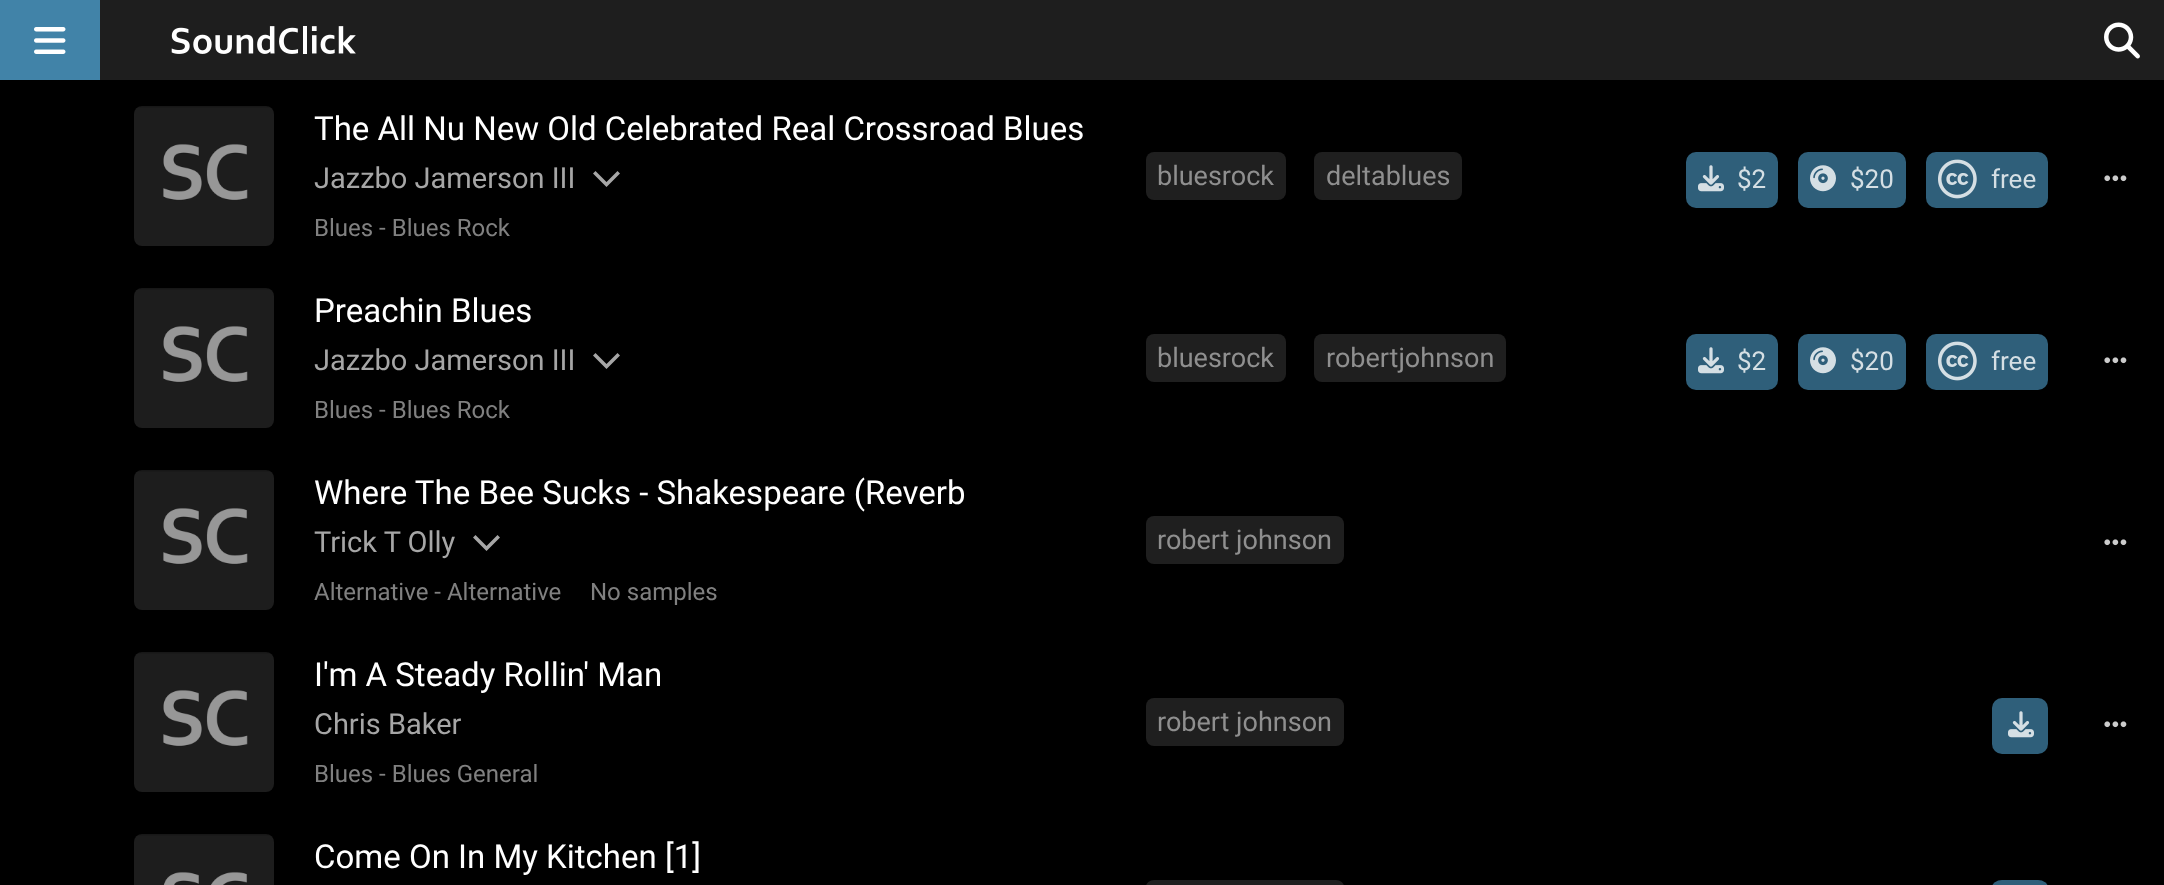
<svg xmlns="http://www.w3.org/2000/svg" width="2164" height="885">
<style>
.a{font:33px Roboto;fill:#fff}
.b{font:29px Roboto;fill:#a6a6a6}
.c{font:24px Roboto;fill:#808080}
.d{font:27px Roboto;fill:#8f8f8f}
.e{font:26px Roboto;fill:#d5dfe4}
</style>
<rect width="100%" height="100%" fill="#000"/>
<path fill="#1e1e1e" d="M100 0h2064v80H100z"/>
<path fill="#4183a8" d="M0 0h100v80H0z"/>
<image href="1.png" x="34" y="27" width="32" height="27"/>
<image href="2.png" x="171" y="26" width="185" height="28"/>
<image href="3.png" x="2104" y="22" width="36" height="37"/>
<image href="4.png" x="134" y="106" width="140" height="140"/>
<path fill="#a6a6a6" d="M606.5 187l13.5-13.5l-2.5-2.5l-11 11l-11-11l-2.5 2.5z"/>
<rect fill="#1f1f1f" x="1146" y="152" width="140" height="48" rx="8"/>
<rect fill="#1f1f1f" x="1314" y="152" width="148" height="48" rx="8"/>
<rect fill="#2f5f7a" x="1686" y="152" width="92" height="56" rx="10"/>
<image href="5.png" x="1698" y="165" width="26" height="27"/>
<rect fill="#2f5f7a" x="1798" y="152" width="108" height="56" rx="10"/>
<image href="6.png" x="1810" y="165" width="26" height="27"/>
<rect fill="#2f5f7a" x="1926" y="152" width="122" height="56" rx="10"/>
<image href="7.png" x="1938" y="159" width="39" height="40"/>
<image href="8.png" x="2104" y="175" width="23" height="7"/>
<image href="4.png" x="134" y="288" width="140" height="140"/>
<path fill="#a6a6a6" d="M606.5 369l13.5-13.5l-2.5-2.5l-11 11l-11-11l-2.5 2.5z"/>
<rect fill="#1f1f1f" x="1146" y="334" width="140" height="48" rx="8"/>
<rect fill="#1f1f1f" x="1314" y="334" width="192" height="48" rx="8"/>
<rect fill="#2f5f7a" x="1686" y="334" width="92" height="56" rx="10"/>
<image href="5.png" x="1698" y="347" width="26" height="27"/>
<rect fill="#2f5f7a" x="1798" y="334" width="108" height="56" rx="10"/>
<image href="6.png" x="1810" y="347" width="26" height="27"/>
<rect fill="#2f5f7a" x="1926" y="334" width="122" height="56" rx="10"/>
<image href="7.png" x="1938" y="341" width="39" height="40"/>
<image href="8.png" x="2104" y="357" width="23" height="7"/>
<image href="4.png" x="134" y="470" width="140" height="140"/>
<path fill="#a6a6a6" d="M486.5 551l13.5-13.5l-2.5-2.5l-11 11l-11-11l-2.5 2.5z"/>
<rect fill="#1f1f1f" x="1146" y="516" width="198" height="48" rx="8"/>
<image href="8.png" x="2104" y="539" width="23" height="7"/>
<image href="4.png" x="134" y="652" width="140" height="140"/>
<rect fill="#1f1f1f" x="1146" y="698" width="198" height="48" rx="8"/>
<rect fill="#2f5f7a" x="1992" y="698" width="56" height="56" rx="10"/>
<image href="5.png" x="2008" y="711" width="26" height="27"/>
<image href="8.png" x="2104" y="721" width="23" height="7"/>
<image href="9.png" x="134" y="834" width="140" height="51"/>
<rect fill="#1f1f1f" x="1146" y="880" width="198" height="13" rx="8"/>
<rect fill="#2f5f7a" x="1992" y="880" width="56" height="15" rx="10"/>
<text class="a" x="314" y="140">The All Nu New Old Celebrated Real Crossroad Blues</text>
<text class="b" x="314" y="188">Jazzbo Jamerson III</text>
<text class="c" x="314" y="236">Blues - Blues Rock</text>
<text class="d" x="1157" y="185">bluesrock</text>
<text class="d" x="1326" y="185">deltablues</text>
<text class="e" x="1737" y="188">$2</text>
<text class="e" x="1850" y="188">$20</text>
<text class="e" x="1991" y="188">free</text>
<text class="a" x="314" y="322">Preachin Blues</text>
<text class="b" x="314" y="370">Jazzbo Jamerson III</text>
<text class="c" x="314" y="418">Blues - Blues Rock</text>
<text class="d" x="1157" y="367">bluesrock</text>
<text class="d" x="1326" y="367">robertjohnson</text>
<text class="e" x="1737" y="370">$2</text>
<text class="e" x="1850" y="370">$20</text>
<text class="e" x="1991" y="370">free</text>
<text class="a" x="314" y="504">Where The Bee Sucks - Shakespeare (Reverb</text>
<text class="b" x="314" y="552">Trick T Olly</text>
<text class="c" x="314" y="600">Alternative - Alternative</text>
<text class="c" x="590" y="600">No samples</text>
<text class="d" x="1157" y="549">robert johnson</text>
<text class="a" x="314" y="686">I'm A Steady Rollin' Man</text>
<text class="b" x="314" y="734">Chris Baker</text>
<text class="c" x="314" y="782">Blues - Blues General</text>
<text class="d" x="1157" y="731">robert johnson</text>
<text class="a" x="314" y="868">Come On In My Kitchen [1]</text>
</svg>
